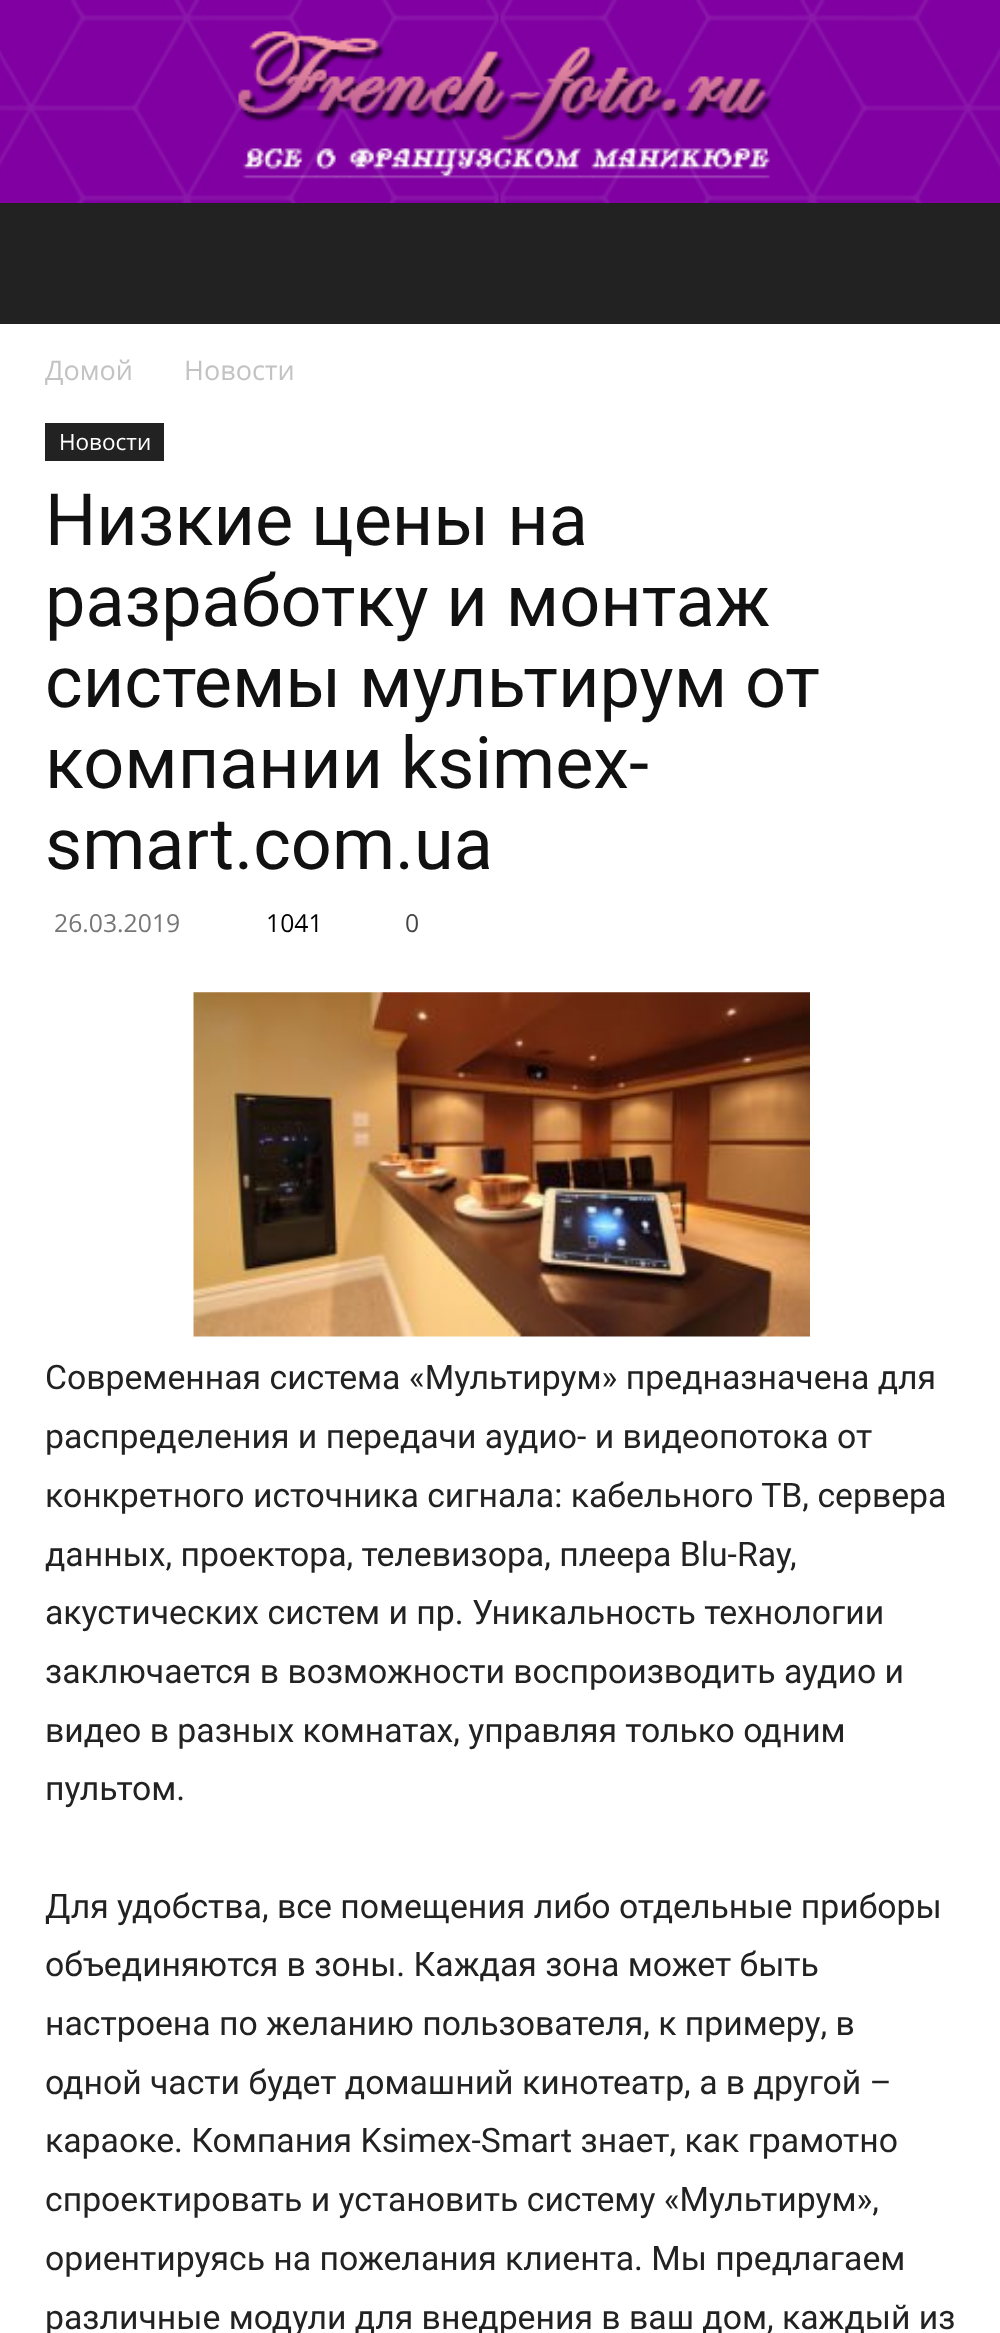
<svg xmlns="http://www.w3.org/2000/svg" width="1000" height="2333">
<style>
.a{font:27px Open Sans;fill:#c3c3c3}
.b{font:22.5px Open Sans;fill:#fff}
.c{font:72px Roboto;fill:#111}
.d{font:24.75px Open Sans;fill:#767676}
.e{font:24.75px Open Sans;fill:#000}
.f{font:24.75px Open Sans;fill:#444}
.g{font:33.75px Roboto;fill:#222}
</style>
<rect width="100%" height="100%" fill="#fff"/>
<image href="1.png" x="0" y="0" width="1000" height="203"/>
<image href="2.png" x="238" y="31" width="534" height="148"/>
<path fill="#222" d="M0 203h1000v121H0z"/>
<path fill="#222" d="M45 423h119v38H45z"/>
<image href="3.png" x="193" y="992" width="617" height="345"/>
<text class="a" x="45" y="380">Домой</text>
<text class="a" x="184" y="380">Новости</text>
<text class="b" x="59" y="450">Новости</text>
<text class="c" x="45" y="545">Низкие цены на</text>
<text class="c" x="45" y="626">разработку и монтаж</text>
<text class="c" x="45" y="707">системы мультирум от</text>
<text class="c" x="45" y="788">компании ksimex-</text>
<text class="c" x="45" y="869">smart.com.ua</text>
<text class="d" x="54" y="932">26.03.2019</text>
<text class="e" x="266" y="932">1041</text>
<text class="f" x="405" y="932">0</text>
<text class="g" x="45" y="1389">Современная система «Мультирум» предназначена для</text>
<text class="g" x="45" y="1448">распределения и передачи аудио- и видеопотока от</text>
<text class="g" x="45" y="1507">конкретного источника сигнала: кабельного ТВ, сервера</text>
<text class="g" x="45" y="1566">данных, проектора, телевизора, плеера Blu-Ray,</text>
<text class="g" x="45" y="1624">акустических систем и пр. Уникальность технологии</text>
<text class="g" x="45" y="1683">заключается в возможности воспроизводить аудио и</text>
<text class="g" x="45" y="1742">видео в разных комнатах, управляя только одним</text>
<text class="g" x="45" y="1800">пультом.</text>
<text class="g" x="45" y="1918">Для удобства, все помещения либо отдельные приборы</text>
<text class="g" x="45" y="1976">объединяются в зоны. Каждая зона может быть</text>
<text class="g" x="45" y="2035">настроена по желанию пользователя, к примеру, в</text>
<text class="g" x="45" y="2094">одной части будет домашний кинотеатр, а в другой –</text>
<text class="g" x="45" y="2152">караоке. Компания Ksimex-Smart знает, как грамотно</text>
<text class="g" x="45" y="2211">спроектировать и установить систему «Мультирум»,</text>
<text class="g" x="45" y="2270">ориентируясь на пожелания клиента. Мы предлагаем</text>
<text class="g" x="45" y="2329">различные модули для внедрения в ваш дом, каждый из</text>
</svg>
